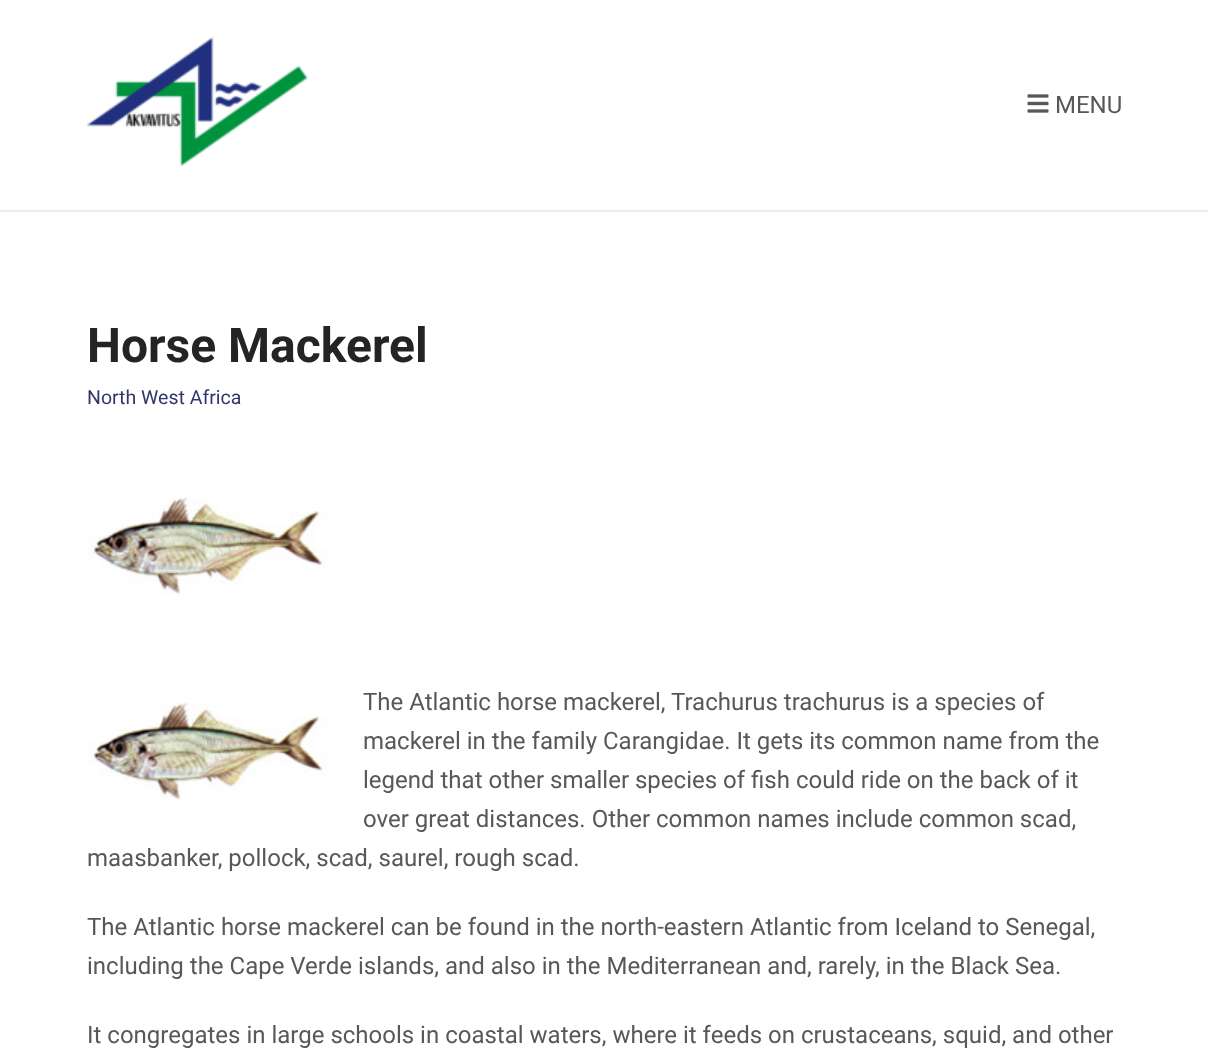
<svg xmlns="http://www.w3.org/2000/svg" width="1208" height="1059">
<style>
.a{font:24px Roboto;fill:#585858}
.b{font:bold 48px Roboto;fill:#242424}
.c{font:19.5px Roboto;fill:#31356b}
</style>
<rect width="100%" height="100%" fill="#fff"/>
<path fill="#ebebeb" d="M0 210h1208v2H0z"/>
<image href="1.png" x="87" y="37" width="221" height="130"/>
<image href="2.png" x="1027" y="94" width="22" height="19"/>
<image href="3.png" x="87" y="497" width="240" height="98"/>
<image href="4.png" x="87" y="702" width="240" height="99"/>
<text class="a" x="1055" y="113">MENU</text>
<text class="b" x="87" y="362">Horse Mackerel</text>
<text class="c" x="87" y="404">North West Africa</text>
<text class="a" x="363" y="710">The Atlantic horse mackerel, Trachurus trachurus is a species of</text>
<text class="a" x="363" y="749">mackerel in the family Carangidae. It gets its common name from the</text>
<text class="a" x="363" y="788">legend that other smaller species of fish could ride on the back of it</text>
<text class="a" x="363" y="827">over great distances. Other common names include common scad,</text>
<text class="a" x="87" y="866">maasbanker, pollock, scad, saurel, rough scad.</text>
<text class="a" x="87" y="935">The Atlantic horse mackerel can be found in the north-eastern Atlantic from Iceland to Senegal,</text>
<text class="a" x="87" y="974">including the Cape Verde islands, and also in the Mediterranean and, rarely, in the Black Sea.</text>
<text class="a" x="87" y="1043">It congregates in large schools in coastal waters, where it feeds on crustaceans, squid, and other</text>
</svg>
